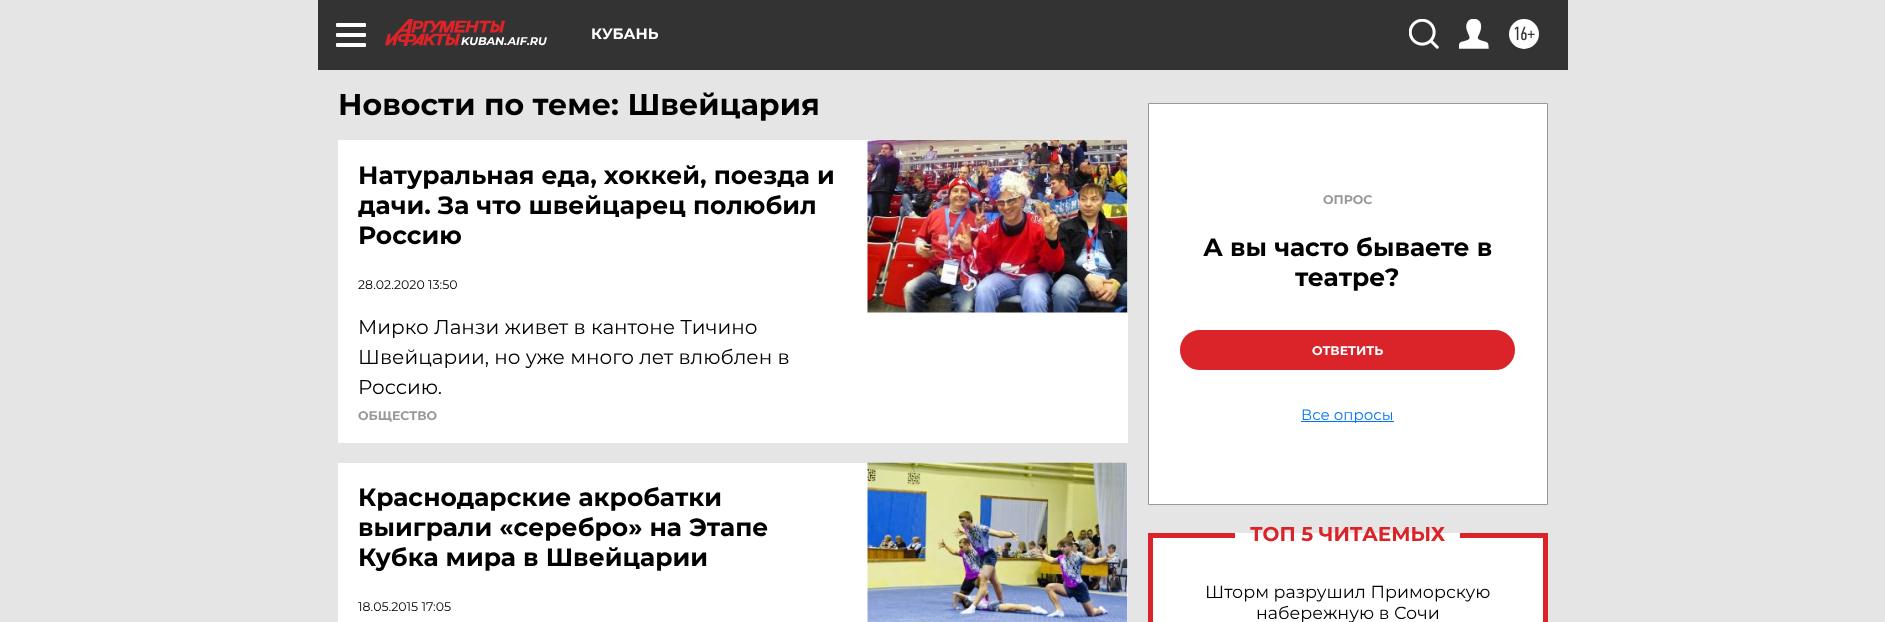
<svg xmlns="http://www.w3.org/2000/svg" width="1885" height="622">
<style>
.a{font:bold 15px Montserrat;fill:#fff}
.b{font:19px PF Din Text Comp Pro;fill:#333}
.c{font:italic bold 11.25px Montserrat;fill:#fff}
.d{font:bold 30px Montserrat;fill:#000}
.e{font:bold 25px Montserrat;fill:#000}
.f{font:12.5px Montserrat;fill:#000}
.g{font:20px Montserrat;fill:#000}
.h{font:bold 12.5px Montserrat;fill:#999}
.i{font:bold 12.5px Montserrat;fill:#fff}
.j{font:15px Montserrat;fill:#0076ff}
.k{font:bold 20px Montserrat;fill:#da2429}
.l{font:17.5px Montserrat;fill:#000}
</style>
<rect width="100%" height="100%" fill="#e5e5e5"/>
<path fill="#333" d="M318 0h1250v70H318z"/>
<rect fill="#fff" x="336" y="23" width="30" height="4" rx="1"/>
<rect fill="#fff" x="336" y="33" width="30" height="4" rx="1"/>
<rect fill="#fff" x="336" y="43" width="30" height="4" rx="1"/>
<image href="1.png" x="1409" y="19" width="30" height="30"/>
<image href="2.png" x="1459" y="19" width="30" height="30"/>
<circle fill="#fff" cx="1524" cy="34" r="15"/>
<image href="3.png" x="385" y="19" width="120" height="27"/>
<path fill="#fff" d="M338 140h790v303H338z"/>
<image href="4.png" x="867" y="140" width="261" height="173"/>
<path fill="#fff" d="M338 463h790v159H338z"/>
<image href="5.png" x="867" y="462" width="261" height="160"/>
<path fill="#fff" stroke="#999" d="M1148.5 103.5h399v401H1148.5z"/>
<rect fill="#da2429" stroke="#da2429" stroke-width="3" x="1181.5" y="331.5" width="332" height="37" rx="18.5"/>
<path fill="#0076ff" d="M1301 421h93v1H1301z"/>
<path fill="#fff" d="M1153 533h390v89H1153z"/>
<path fill="#da2429" d="M1148 533h5v89H1148z"/>
<path fill="#da2429" d="M1148 533h87v5H1148z"/>
<path fill="#da2429" d="M1543 533h5v89H1543z"/>
<path fill="#da2429" d="M1460 533h88v5H1460z"/>
<text class="a" x="591" y="39">КУБАНЬ</text>
<text class="b" x="1513" y="40">16+</text>
<text class="c" x="461" y="45">KUBAN.AIF.RU</text>
<text class="d" x="338" y="115">Новости по теме: Швейцария</text>
<text class="e" x="358" y="184">Натуральная еда, хоккей, поезда и</text>
<text class="e" x="358" y="214">дачи. За что швейцарец полюбил</text>
<text class="e" x="358" y="244">Россию</text>
<text class="f" x="358" y="289">28.02.2020 13:50</text>
<text class="g" x="358" y="334">Мирко Ланзи живет в кантоне Тичино</text>
<text class="g" x="358" y="364">Швейцарии, но уже много лет влюблен в</text>
<text class="g" x="358" y="394">Россию.</text>
<text class="h" x="358" y="420">ОБЩЕСТВО</text>
<text class="e" x="358" y="506">Краснодарские акробатки</text>
<text class="e" x="358" y="536">выиграли «серебро» на Этапе</text>
<text class="e" x="358" y="566">Кубка мира в Швейцарии</text>
<text class="f" x="358" y="611">18.05.2015 17:05</text>
<text class="h" x="1323" y="204">ОПРОС</text>
<text class="e" x="1203" y="256">А вы часто бываете в</text>
<text class="e" x="1295" y="286">театре?</text>
<text class="i" x="1312" y="355">ОТВЕТИТЬ</text>
<text class="j" x="1301" y="420">Все опросы</text>
<text class="k" x="1250" y="541">ТОП 5 ЧИТАЕМЫХ</text>
<text class="l" x="1205" y="598">Шторм разрушил Приморскую</text>
<text class="l" x="1256" y="619">набережную в Сочи</text>
</svg>
